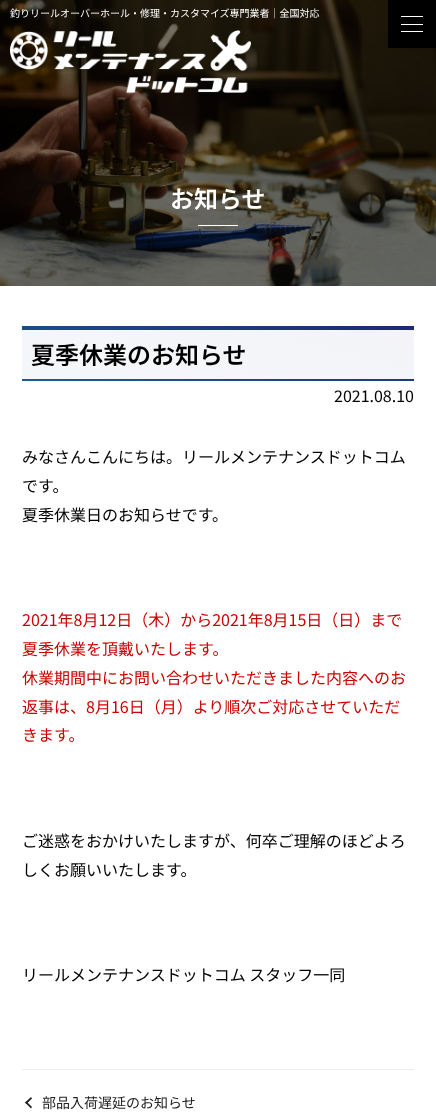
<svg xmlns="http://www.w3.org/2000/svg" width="436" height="1113">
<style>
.a{font:10px Noto Sans JP;fill:#fff}
.b{font:600 24px Noto Sans JP;fill:#fff}
.c{font:600 24px Noto Sans JP;fill:#000}
.d{font:16px Noto Sans JP;fill:#000}
.e{font:16px Noto Sans JP;fill:#c00}
.f{font:14px Noto Sans JP;fill:#222}
</style>
<defs>
<linearGradient id="g1" gradientUnits="userSpaceOnUse" x1="198" y1="428" x2="238" y2="279"><stop offset="0" stop-color="#1c5e8e"/><stop offset="1" stop-color="#1e2971"/></linearGradient>
<linearGradient id="g2" gradientUnits="userSpaceOnUse" x1="198" y1="428" x2="238" y2="279"><stop offset="0" stop-color="#f4f7f9"/><stop offset="1" stop-color="#f4f4f8"/></linearGradient>
</defs>
<rect width="100%" height="100%" fill="#fff"/>
<image href="2.png" x="0" y="0" width="436" height="286"/>
<image href="1.png" x="10" y="30" width="241" height="63"/>
<path fill="#000" d="M388 0h48v48H388z"/>
<path fill="#fff" d="M401 16h22v1H401z"/>
<path fill="#fff" d="M401 24h22v1H401z"/>
<path fill="#fff" d="M401 31h22v1H401z"/>
<path fill="#fff" d="M198 225h40v1H198z"/>
<path fill="url(#g1)" d="M22 326h392v55H22z"/>
<path fill="url(#g2)" d="M22 330h392v49H22z"/>
<path fill="#eee" d="M22 1069h392v1H22z"/>
<path fill="#222" d="M25 1102.5l6-5.5l1 1.5l-5.5 5.5z"/>
<path fill="#222" d="M25 1102.5l1.5-1l5.5 5.5l-1 1.5z"/>
<text class="a" x="10" y="17">釣りリールオーバーホール・修理・カスタマイズ専門業者｜全国対応</text>
<text class="b" x="170" y="208">お知らせ</text>
<text class="c" x="31" y="364">夏季休業のお知らせ</text>
<text class="d" x="334" y="402">2021.08.10</text>
<text class="d" x="22" y="463">みなさんこんにちは。リールメンテナンスドットコム</text>
<text class="d" x="22" y="492">です。</text>
<text class="d" x="22" y="521">夏季休業日のお知らせです。</text>
<text class="e" x="22" y="626">2021年8月12日（木）から2021年8月15日（日）まで</text>
<text class="e" x="22" y="655">夏季休業を頂戴いたします。</text>
<text class="e" x="22" y="684">休業期間中にお問い合わせいただきました内容へのお</text>
<text class="e" x="22" y="713">返事は、8月16日（月）より順次ご対応させていただ</text>
<text class="e" x="22" y="741">きます。</text>
<text class="d" x="22" y="847">ご迷惑をおかけいたしますが、何卒ご理解のほどよろ</text>
<text class="d" x="22" y="876">しくお願いいたします。</text>
<text class="d" x="22" y="981">リールメンテナンスドットコム スタッフ一同</text>
<text class="f" x="42" y="1108">部品入荷遅延のお知らせ</text>
</svg>
